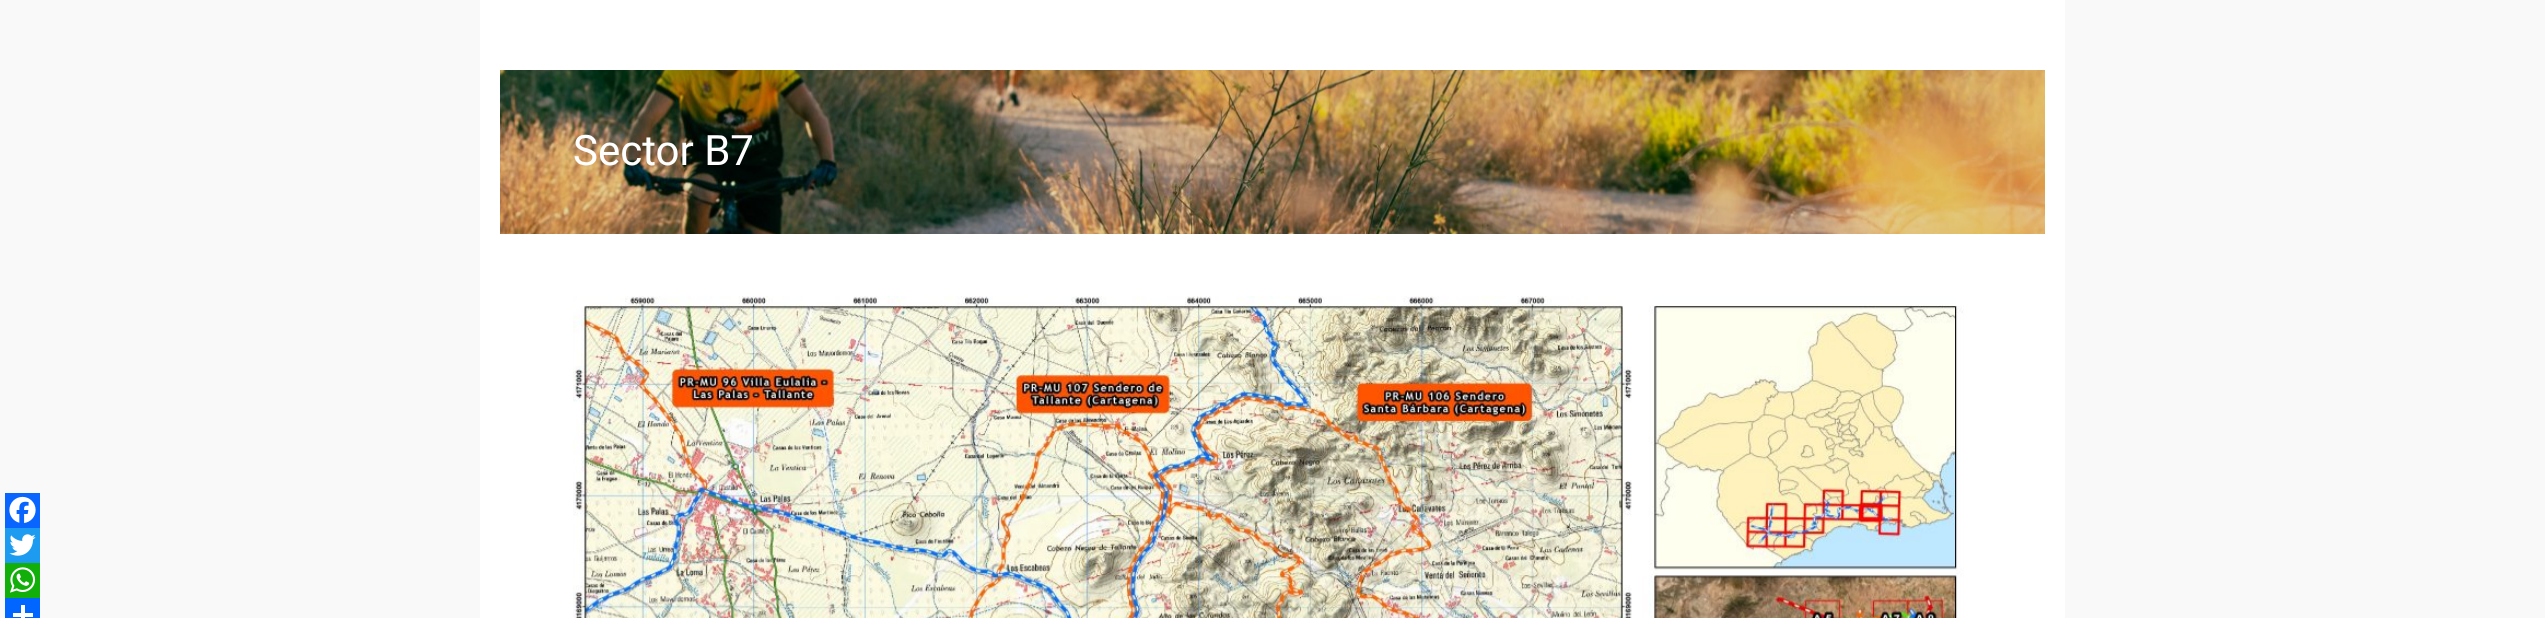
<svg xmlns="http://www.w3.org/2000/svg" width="2545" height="618">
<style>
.a{font:42px Roboto;fill:#fff}
</style>
<rect width="100%" height="100%" fill="#f9f9f9"/>
<path fill="#fff" d="M480 0h1585v618H480z"/>
<image href="1.png" x="500" y="70" width="1545" height="164"/>
<image href="2.png" x="573" y="296" width="1391" height="322"/>
<path fill="#0866ff" d="M5 493h35v35H5z"/>
<image href="3.png" x="9" y="496" width="27" height="27"/>
<path fill="#1d9bf0" d="M5 528h35v35H5z"/>
<image href="4.png" x="9" y="534" width="27" height="22"/>
<path fill="#12af0a" d="M5 563h35v35H5z"/>
<image href="5.png" x="10" y="567" width="26" height="26"/>
<path fill="#0166ff" d="M5 598h35v20H5z"/>
<path fill="#fff" d="M21 605h4v13H21z"/>
<path fill="#fff" d="M13 613h20v4H13z"/>
<text class="a" x="573" y="165">Sector B7</text>
</svg>
